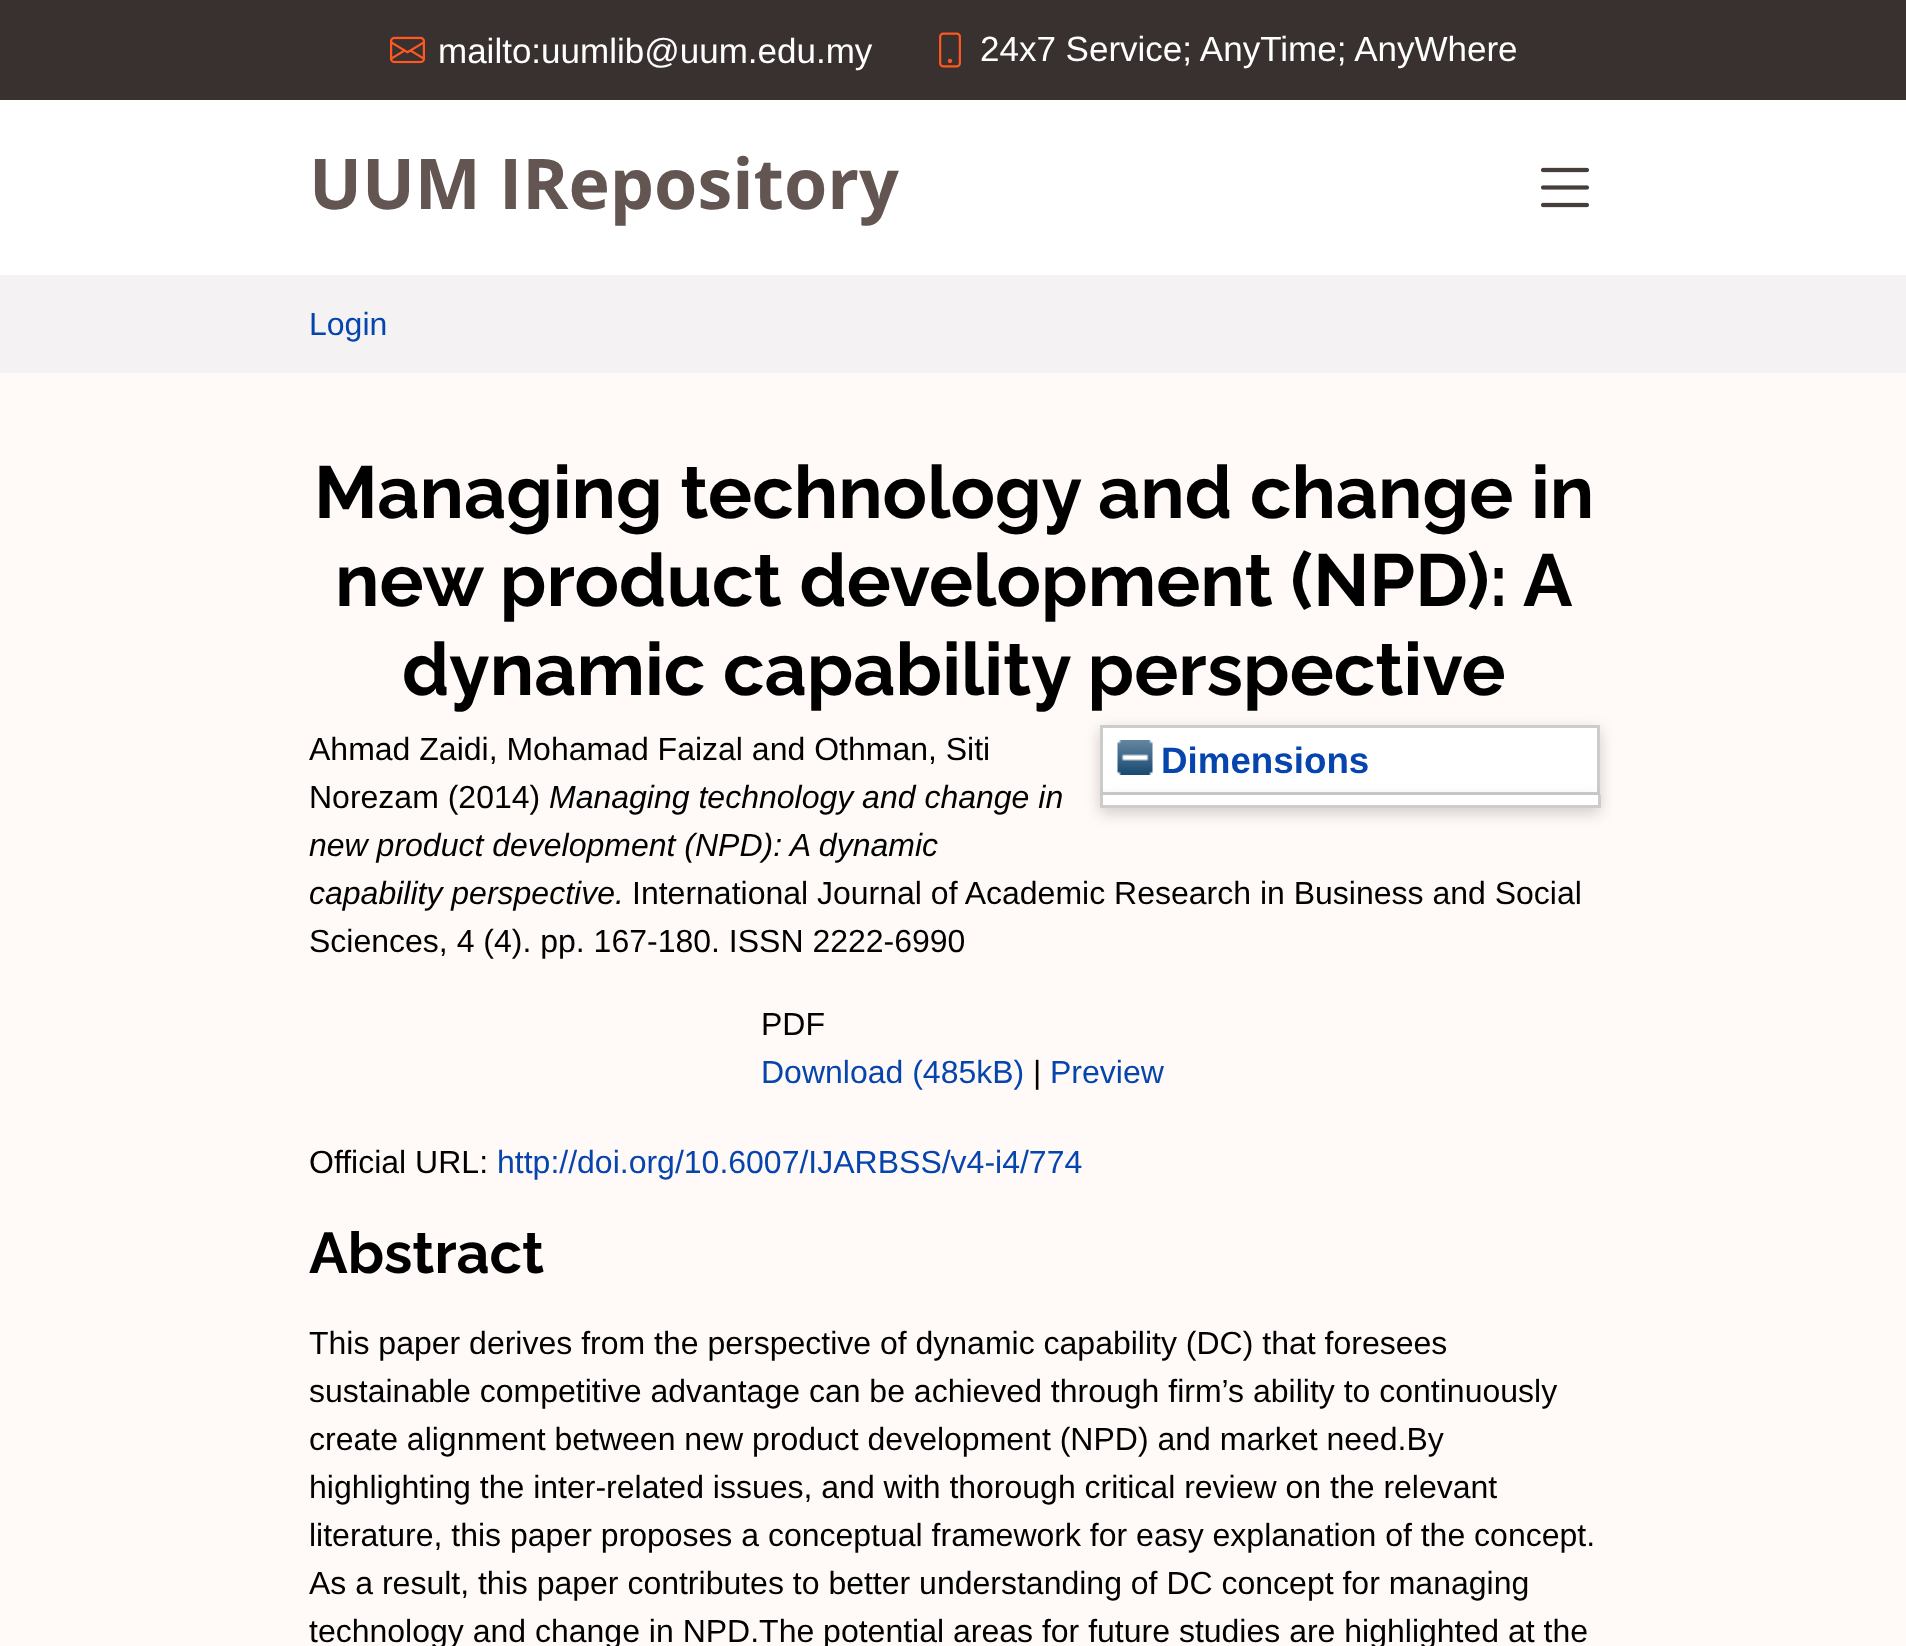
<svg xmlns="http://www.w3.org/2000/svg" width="1906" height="1646">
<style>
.a{font:35px Liberation Sans;fill:#fff}
.b{font:bold 70px Open Sans;fill:#635551}
.c{font:32px Liberation Sans;fill:#0645ad}
.d{font:bold 73.6px Raleway;fill:#000}
.e{font:32px Liberation Sans;fill:#000}
.f{font:italic 32px Liberation Sans;fill:#000}
.g{font:bold 57.5px Raleway;fill:#000}
.h{font:bold 36.75px Liberation Sans;fill:#0645ad}
</style>
<rect width="100%" height="100%" fill="#fff"/>
<path fill="#39312f" d="M0 0h1906v100H0z"/>
<image href="1.png" x="390" y="36" width="35" height="28"/>
<image href="2.png" x="939" y="32" width="22" height="36"/>
<image href="3.png" x="1541" y="167" width="48" height="41"/>
<path fill="#f4f2f2" d="M0 275h1906v98H0z"/>
<path fill="#fff9f7" d="M0 373h1906v1273H0z"/>
<path fill="#6464644d" filter="blur(7.5px)" d="M1100 730h500v70H1100z"/>
<path fill="#fff" stroke="#ccc" stroke-width="3" d="M1101.5 726.5h497v67H1101.5z"/>
<image href="4.png" x="1117" y="740" width="36" height="35"/>
<path fill="#6464644d" filter="blur(7.5px)" d="M1100 800h500v13H1100z"/>
<path fill="#fff" d="M1103 795h495v10H1103z"/>
<path fill="#ccc" d="M1598 795h3v13H1598z"/>
<path fill="#ccc" d="M1100 805h500v3H1100z"/>
<path fill="#ccc" d="M1100 795h3v13H1100z"/>
<text class="a" x="438" y="63">mailto:uumlib@uum.edu.my</text>
<text class="a" x="980" y="61">24x7 Service; AnyTime; AnyWhere</text>
<text class="b" x="309" y="209">UUM IRepository</text>
<text class="c" x="309" y="335">Login</text>
<text class="d" x="314" y="518">Managing technology and change in</text>
<text class="d" x="335" y="606">new product development (NPD): A</text>
<text class="d" x="402" y="695">dynamic capability perspective</text>
<text class="e" x="309" y="760">Ahmad Zaidi, Mohamad Faizal and Othman, Siti</text>
<text class="e" x="309" y="808">Norezam (2014)</text>
<text class="f" x="549" y="808">Managing technology and change in</text>
<text class="f" x="309" y="856">new product development (NPD): A dynamic</text>
<text class="f" x="309" y="904">capability perspective.</text>
<text class="e" x="632" y="904">International Journal of Academic Research in Business and Social</text>
<text class="e" x="309" y="952">Sciences, 4 (4). pp. 167-180. ISSN 2222-6990</text>
<text class="e" x="761" y="1035">PDF</text>
<text class="c" x="761" y="1083">Download (485kB)</text>
<text class="e" x="1033" y="1083">|</text>
<text class="c" x="1050" y="1083">Preview</text>
<text class="e" x="309" y="1173">Official URL:</text>
<text class="c" x="497" y="1173">http://doi.org/10.6007/IJARBSS/v4-i4/774</text>
<text class="g" x="309" y="1273">Abstract</text>
<text class="e" x="309" y="1354">This paper derives from the perspective of dynamic capability (DC) that foresees</text>
<text class="e" x="309" y="1402">sustainable competitive advantage can be achieved through firm’s ability to continuously</text>
<text class="e" x="309" y="1450">create alignment between new product development (NPD) and market need.By</text>
<text class="e" x="309" y="1498">highlighting the inter-related issues, and with thorough critical review on the relevant</text>
<text class="e" x="309" y="1546">literature, this paper proposes a conceptual framework for easy explanation of the concept.</text>
<text class="e" x="309" y="1594">As a result, this paper contributes to better understanding of DC concept for managing</text>
<text class="e" x="309" y="1642">technology and change in NPD.The potential areas for future studies are highlighted at the</text>
<text class="h" x="1161" y="773">Dimensions</text>
</svg>
